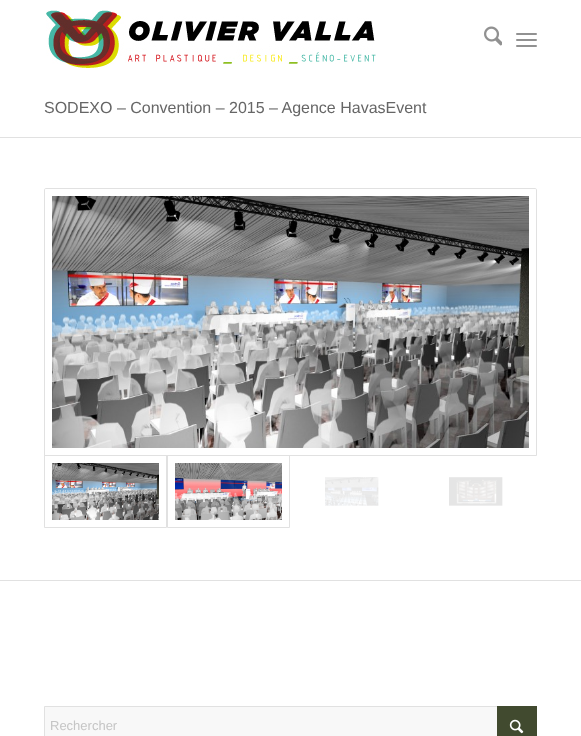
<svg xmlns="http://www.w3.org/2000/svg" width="581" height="736">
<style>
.a{font:16px Liberation Sans;fill:#666}
.b{font:13px Liberation Sans;fill:#c5c5c5}
</style>
<rect width="100%" height="100%" fill="#fff"/>
<image href="1.png" x="46" y="10" width="330" height="58"/>
<image href="2.png" x="484" y="26" width="18" height="20"/>
<rect fill="#919191" x="516" y="39" width="21" height="2" rx="1"/>
<rect fill="#919191" x="516" y="33" width="21" height="2" rx="1"/>
<rect fill="#919191" x="516" y="45" width="21" height="2" rx="1"/>
<path fill="#e1e1e1" d="M0 137h581v1H0z"/>
<path fill="none" stroke="#e1e1e1" d="M46 188.5h489c1 0 1.5 .5 1.5 1.5v265.5h-492v-265.5c0-1 .5-1.5 1.5-1.5z"/>
<image href="3.png" x="52" y="196" width="477" height="252"/>
<path fill="none" stroke="#e1e1e1" d="M44.5 455.5h122v72H44.5z"/>
<image href="4.png" x="52" y="463" width="107" height="57"/>
<path fill="none" stroke="#e1e1e1" d="M167.5 455.5h122v72H167.5z"/>
<image href="5.png" x="175" y="463" width="107" height="57"/>
<image href="6.png" x="325" y="477" width="54" height="29"/>
<image href="7.png" x="449" y="477" width="54" height="29"/>
<path fill="#e1e1e1" d="M0 580h581v1H0z"/>
<path fill="#f8f8f8" d="M45 707h452v29H45z"/>
<path fill="none" stroke="#e1e1e1" d="M44.5 706.5h492v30H44.5z"/>
<path fill="#414a2f" d="M497 706h40v30H497z"/>
<image href="8.png" x="509" y="719" width="15" height="15"/>
<text class="a" x="44" y="113">SODEXO – Convention – 2015 – Agence HavasEvent</text>
<text class="b" x="50" y="730">Rechercher</text>
</svg>
